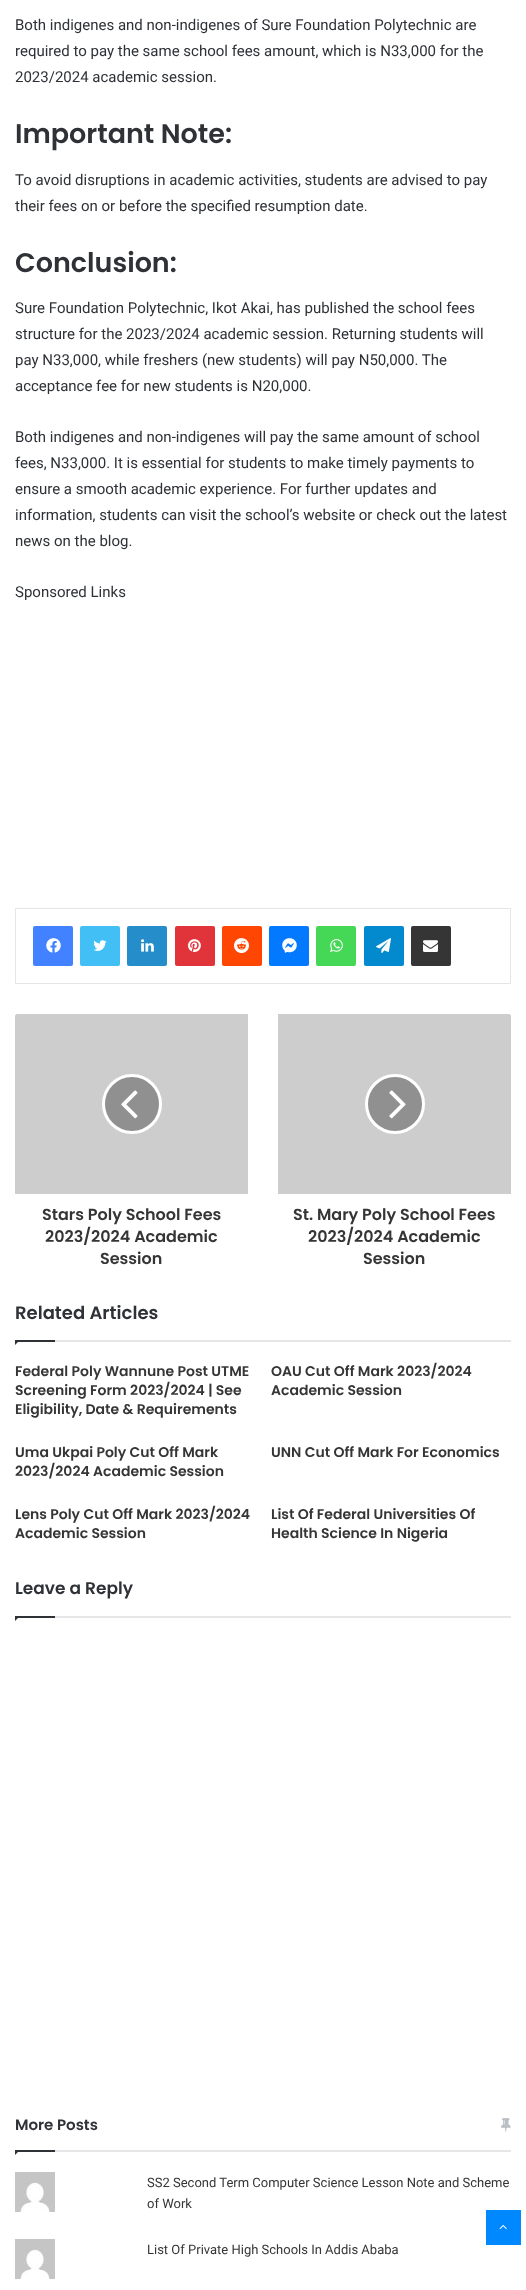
<svg xmlns="http://www.w3.org/2000/svg" width="526" height="2290">
<style>
.a{font:15px Roboto;fill:#2e3136}
.b{font:600 27px Poppins;fill:#2e3136}
.c{font:600 16px Poppins;fill:#353535}
.d{font:600 18px Poppins;fill:#2e3136}
.e{font:600 14px Poppins;fill:#353535}
.f{font:600 17px Poppins;fill:#2e3136}
.g{font:600 15px Poppins;fill:#2e3136}
.h{font:13px Roboto;fill:#353535}
</style>
<rect width="100%" height="100%" fill="#fff"/>
<path fill="none" stroke="#e6e6e6" d="M15.5 908.5h495v75H15.5z"/>
<rect fill="#4281ff" x="33" y="926" width="40" height="40" rx="2"/>
<image href="1.png" x="46" y="938" width="15" height="15"/>
<rect fill="#42c0f5" x="80" y="926" width="40" height="40" rx="2"/>
<image href="2.png" x="93" y="940" width="14" height="11"/>
<rect fill="#258dc9" x="127" y="926" width="40" height="40" rx="2"/>
<image href="3.png" x="141" y="939" width="13" height="13"/>
<rect fill="#e1333a" x="175" y="926" width="40" height="40" rx="2"/>
<image href="4.png" x="188" y="939" width="13" height="13"/>
<rect fill="#ff4703" x="222" y="926" width="40" height="40" rx="2"/>
<image href="5.png" x="234" y="938" width="15" height="16"/>
<rect fill="#0379ff" x="269" y="926" width="40" height="40" rx="2"/>
<image href="6.png" x="282" y="938" width="15" height="15"/>
<rect fill="#45d856" x="316" y="926" width="40" height="40" rx="2"/>
<image href="7.png" x="330" y="939" width="13" height="13"/>
<rect fill="#0389cd" x="364" y="926" width="40" height="40" rx="2"/>
<image href="8.png" x="376" y="938" width="15" height="15"/>
<rect fill="#353535" x="411" y="926" width="40" height="40" rx="2"/>
<image href="9.png" x="423" y="940" width="15" height="12"/>
<path fill="#cdcdcd" d="M17 1014h231v180h-233v-178c0-1 1-2 2-2z"/>
<circle fill="#909090" stroke="#fff" stroke-width="3" cx="132" cy="1104" r="28.5"/>
<image href="10.png" x="121" y="1090" width="17" height="29"/>
<path fill="#cdcdcd" d="M278 1014h231c1 0 2 1 2 2v178h-233z"/>
<circle fill="#909090" stroke="#fff" stroke-width="3" cx="395" cy="1104" r="28.5"/>
<image href="11.png" x="389" y="1090" width="17" height="29"/>
<path fill="#e6e6e6" d="M55 1340h456v2H55z"/>
<path fill="#2e3136" d="M15 1340h5l-5 5z"/>
<path fill="#2e3136" d="M15 1340h40v2H15z"/>
<path fill="#e6e6e6" d="M55 1616h456v2H55z"/>
<path fill="#2e3136" d="M15 1616h5l-5 5z"/>
<path fill="#2e3136" d="M15 1616h40v2H15z"/>
<path fill="#e6e6e6" d="M55 2150h456v2H55z"/>
<image href="12.png" x="501" y="2118" width="10" height="14"/>
<path fill="#2e3136" d="M15 2150h5l-5 5z"/>
<path fill="#2e3136" d="M15 2150h40v2H15z"/>
<image href="13.png" x="15" y="2172" width="40" height="40"/>
<image href="13.png" x="15" y="2239" width="40" height="40"/>
<path fill="#08f" d="M486 2210h35v35H486z"/>
<image href="14.png" x="499" y="2224" width="8" height="6"/>
<text class="a" x="15" y="30">Both indigenes and non-indigenes of Sure Foundation Polytechnic are</text>
<text class="a" x="15" y="56">required to pay the same school fees amount, which is N33,000 for the</text>
<text class="a" x="15" y="82">2023/2024 academic session.</text>
<text class="b" x="15" y="143">Important Note:</text>
<text class="a" x="15" y="185">To avoid disruptions in academic activities, students are advised to pay</text>
<text class="a" x="15" y="211">their fees on or before the specified resumption date.</text>
<text class="b" x="15" y="272">Conclusion:</text>
<text class="a" x="15" y="313">Sure Foundation Polytechnic, Ikot Akai, has published the school fees</text>
<text class="a" x="15" y="339">structure for the 2023/2024 academic session. Returning students will</text>
<text class="a" x="15" y="365">pay N33,000, while freshers (new students) will pay N50,000. The</text>
<text class="a" x="15" y="391">acceptance fee for new students is N20,000.</text>
<text class="a" x="15" y="442">Both indigenes and non-indigenes will pay the same amount of school</text>
<text class="a" x="15" y="468">fees, N33,000. It is essential for students to make timely payments to</text>
<text class="a" x="15" y="494">ensure a smooth academic experience. For further updates and</text>
<text class="a" x="15" y="520">information, students can visit the school’s website or check out the latest</text>
<text class="a" x="15" y="546">news on the blog.</text>
<text class="a" x="15" y="597">Sponsored Links</text>
<text class="c" x="42" y="1220">Stars Poly School Fees</text>
<text class="c" x="45" y="1242">2023/2024 Academic</text>
<text class="c" x="100" y="1264">Session</text>
<text class="c" x="293" y="1220">St. Mary Poly School Fees</text>
<text class="c" x="308" y="1242">2023/2024 Academic</text>
<text class="c" x="363" y="1264">Session</text>
<text class="d" x="15" y="1319">Related Articles</text>
<text class="e" x="15" y="1376">Federal Poly Wannune Post UTME</text>
<text class="e" x="15" y="1395">Screening Form 2023/2024 | See</text>
<text class="e" x="15" y="1414">Eligibility, Date &amp; Requirements</text>
<text class="e" x="271" y="1376">OAU Cut Off Mark 2023/2024</text>
<text class="e" x="271" y="1395">Academic Session</text>
<text class="e" x="15" y="1457">Uma Ukpai Poly Cut Off Mark</text>
<text class="e" x="15" y="1476">2023/2024 Academic Session</text>
<text class="e" x="271" y="1457">UNN Cut Off Mark For Economics</text>
<text class="e" x="15" y="1519">Lens Poly Cut Off Mark 2023/2024</text>
<text class="e" x="15" y="1538">Academic Session</text>
<text class="e" x="271" y="1519">List Of Federal Universities Of</text>
<text class="e" x="271" y="1538">Health Science In Nigeria</text>
<text class="f" x="15" y="1594">Leave a Reply</text>
<text class="g" x="15" y="2130">More Posts</text>
<text class="h" x="147" y="2187">SS2 Second Term Computer Science Lesson Note and Scheme</text>
<text class="h" x="147" y="2208">of Work</text>
<text class="h" x="147" y="2254">List Of Private High Schools In Addis Ababa</text>
</svg>
